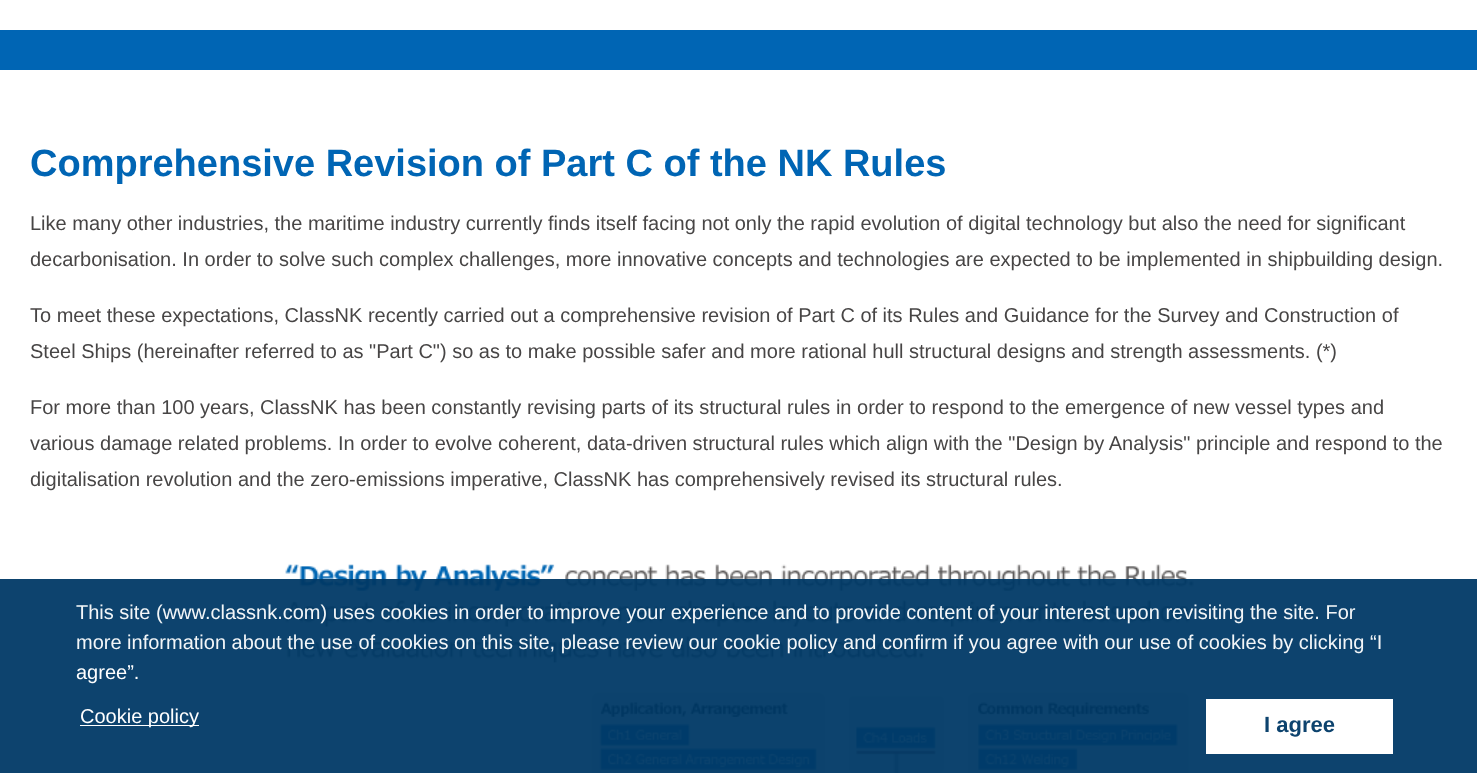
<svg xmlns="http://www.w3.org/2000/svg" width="1477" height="773">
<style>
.a{font:bold 38px Liberation Sans;fill:#0065b4}
.b{font:20px Liberation Sans;fill:#474545}
.c{font:20px Liberation Sans;fill:#f3f6f8}
.d{font:20px Liberation Sans;fill:#fff}
.e{font:bold 22px Liberation Sans;fill:#0d436e}
</style>
<rect width="100%" height="100%" fill="#fff"/>
<path fill="#0d436e" d="M0 579h1477v194H0z"/>
<path fill="#0065b4" d="M0 30h1477v40H0z"/>
<image href="1.png" x="285" y="564" width="909" height="209"/>
<path fill="#fff" d="M80 725h119v1H80z"/>
<path fill="#fff" d="M1206 699h187v55H1206z"/>
<text class="a" x="30" y="176">Comprehensive Revision of Part C of the NK Rules</text>
<text class="b" x="30" y="230">Like many other industries, the maritime industry currently finds itself facing not only the rapid evolution of digital technology but also the need for significant</text>
<text class="b" x="30" y="266">decarbonisation. In order to solve such complex challenges, more innovative concepts and technologies are expected to be implemented in shipbuilding design.</text>
<text class="b" x="30" y="322">To meet these expectations, ClassNK recently carried out a comprehensive revision of Part C of its Rules and Guidance for the Survey and Construction of</text>
<text class="b" x="30" y="358">Steel Ships (hereinafter referred to as "Part C") so as to make possible safer and more rational hull structural designs and strength assessments. (*)</text>
<text class="b" x="30" y="414">For more than 100 years, ClassNK has been constantly revising parts of its structural rules in order to respond to the emergence of new vessel types and</text>
<text class="b" x="30" y="450">various damage related problems. In order to evolve coherent, data-driven structural rules which align with the "Design by Analysis" principle and respond to the</text>
<text class="b" x="30" y="486">digitalisation revolution and the zero-emissions imperative, ClassNK has comprehensively revised its structural rules.</text>
<text class="c" x="76" y="619">This site (www.classnk.com) uses cookies in order to improve your experience and to provide content of your interest upon revisiting the site. For</text>
<text class="c" x="76" y="649">more information about the use of cookies on this site, please review our cookie policy and confirm if you agree with our use of cookies by clicking “I</text>
<text class="d" x="76" y="679">agree”.</text>
<text class="d" x="80" y="723">Cookie policy</text>
<text class="e" x="1264" y="732">I agree</text>
</svg>
